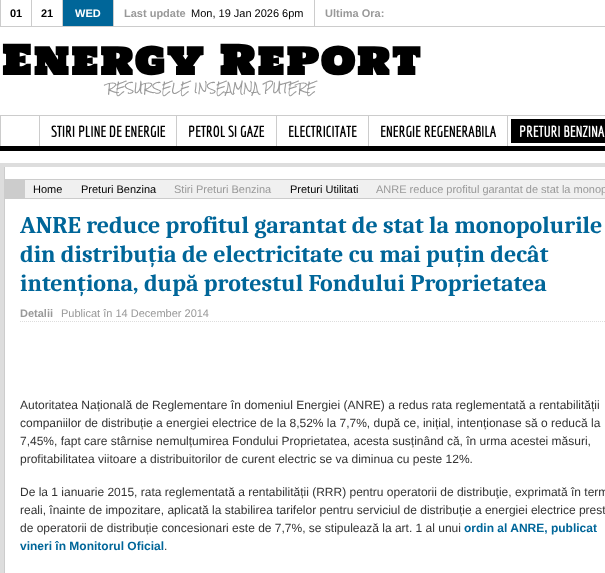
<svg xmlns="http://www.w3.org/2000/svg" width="605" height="573">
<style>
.a{font:bold 11px Liberation Sans;fill:#000}
.b{font:bold 11px Liberation Sans;fill:#fff}
.c{font:bold 11px Liberation Sans;fill:#999}
.d{font:11px Liberation Sans;fill:#000}
.e{font:bold 40px Holtwood One SC;letter-spacing:2px;fill:#000}
.f{font:10.2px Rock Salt;fill:#999}
.g{font:bold 15px Economica;fill:#000}
.h{font:bold 15px Economica;fill:#fff}
.i{font:11px Liberation Sans;fill:#999}
.j{font:bold 24px Caladea;fill:#069}
.k{font:12px Liberation Sans;fill:#333}
.l{font:bold 12px Liberation Sans;fill:#069}
</style>
<rect width="100%" height="100%" fill="#fff"/>
<path fill="#ccc" d="M0 26h605v1H0z"/>
<path fill="#ccc" d="M113 0h1v26H113z"/>
<path fill="#ccc" d="M0 0h1v26H0z"/>
<path fill="#ccc" d="M31 0h1v26H31z"/>
<path fill="#ccc" d="M62 0h1v26H62z"/>
<path fill="#069" d="M63 0h50v26H63z"/>
<path fill="#ccc" d="M314 0h1v26H314z"/>
<path fill="#ccc" d="M0 115h605v1H0z"/>
<path fill="#000" d="M0 146h605v5H0z"/>
<path fill="#ccc" d="M0 116h1v30H0z"/>
<path fill="#ccc" d="M39 116h1v30H39z"/>
<path fill="#ccc" d="M176 116h1v30H176z"/>
<path fill="#ccc" d="M276 116h1v30H276z"/>
<path fill="#ccc" d="M368 116h1v30H368z"/>
<path fill="#ccc" d="M507 116h1v30H507z"/>
<path fill="#000" d="M511 119h94v24H511z"/>
<path fill="#ddd" d="M0 163h605v410H0z"/>
<path fill="#fff" d="M5 167h600v406H5z"/>
<path fill="#ccc" d="M4 167h1v406H4z"/>
<path fill="#f0f0f0" d="M25 180h580v18H25z"/>
<path fill="#ccc" d="M25 179h580v1H25z"/>
<path fill="#ccc" d="M25 198h580v1H25z"/>
<path fill="#ccc" d="M5 179h20v20H5z"/>
<path fill="none" stroke="#ddd" stroke-dasharray="1 1" d="M20 321.5h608"/>
<text class="a" x="10" y="17">01</text>
<text class="a" x="41" y="17">21</text>
<text class="b" x="75" y="17">WED</text>
<text class="c" x="124" y="17">Last update</text>
<text class="d" x="191" y="17">Mon, 19 Jan 2026 6pm</text>
<text class="c" x="325" y="17">Ultima Ora:</text>
<text class="e" x="2" y="75">Energy Report</text>
<text class="f" x="107" y="92">RESURSELE INSEAMNA PUTERE</text>
<text class="g" x="51" y="137">STIRI PLINE DE ENERGIE</text>
<text class="g" x="188" y="137">PETROL SI GAZE</text>
<text class="g" x="288" y="137">ELECTRICITATE</text>
<text class="g" x="380" y="137">ENERGIE REGENERABILA</text>
<text class="h" x="519" y="137">PRETURI BENZINA</text>
<text class="d" x="33" y="193">Home</text>
<text class="d" x="81" y="193">Preturi Benzina</text>
<text class="i" x="174" y="193">Stiri Preturi Benzina</text>
<text class="d" x="290" y="193">Preturi Utilitati</text>
<text class="i" x="376" y="193">ANRE reduce profitul garantat de stat la monop</text>
<text class="j" x="20" y="233">ANRE reduce profitul garantat de stat la monopolurile</text>
<text class="j" x="20" y="262">din distribuția de electricitate cu mai puțin decât</text>
<text class="j" x="20" y="291">intenționa, după protestul Fondului Proprietatea</text>
<text class="c" x="20" y="317">Detalii</text>
<text class="i" x="61" y="317">Publicat în 14 December 2014</text>
<text class="k" x="20" y="409">Autoritatea Națională de Reglementare în domeniul Energiei (ANRE) a redus rata reglementată a rentabilității</text>
<text class="k" x="20" y="427">companiilor de distribuție a energiei electrice de la 8,52% la 7,7%, după ce, inițial, intenționase să o reducă la</text>
<text class="k" x="20" y="445">7,45%, fapt care stârnise nemulțumirea Fondului Proprietatea, acesta susținând că, în urma acestei măsuri,</text>
<text class="k" x="20" y="463">profitabilitatea viitoare a distribuitorilor de curent electric se va diminua cu peste 12%.</text>
<text class="k" x="20" y="496">De la 1 ianuarie 2015, rata reglementată a rentabilității (RRR) pentru operatorii de distribuţie, exprimată în term</text>
<text class="k" x="20" y="514">reali, înainte de impozitare, aplicată la stabilirea tarifelor pentru serviciul de distribuție a energiei electrice prest</text>
<text class="k" x="20" y="532">de operatorii de distribuție concesionari este de 7,7%, se stipulează la art. 1 al unui</text>
<text class="l" x="464" y="532">ordin al ANRE, publicat</text>
<text class="l" x="20" y="550">vineri în Monitorul Oficial</text>
<text class="k" x="164" y="550">.</text>
</svg>
